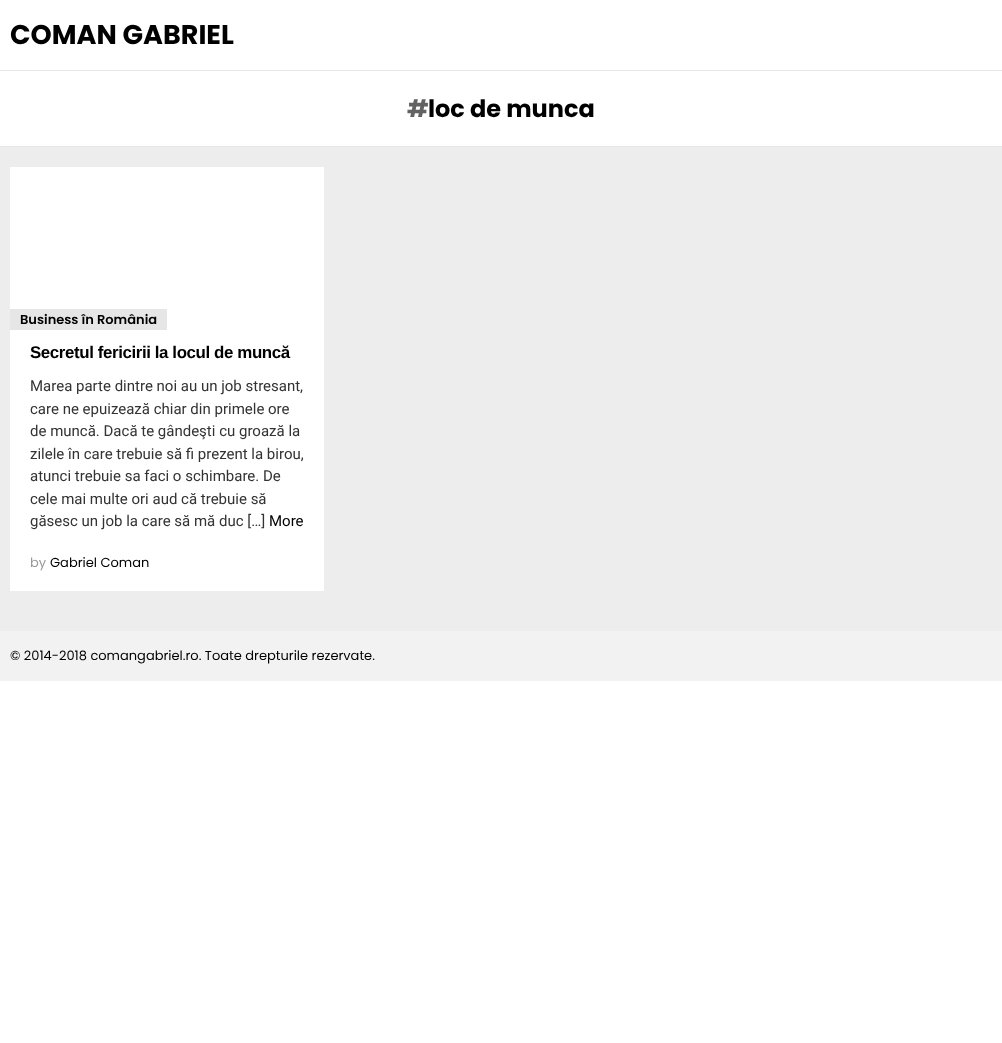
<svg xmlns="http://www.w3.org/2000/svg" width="1002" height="1043">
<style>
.a{font:bold 27px Poppins;fill:#000}
.b{font:bold 24px Poppins;fill:#636363}
.c{font:bold 24px Poppins;fill:#000}
.d{font:600 13px Poppins;fill:#000}
.e{font:bold 16.9px Liberation Sans;letter-spacing:-0.4px;fill:#000}
.f{font:15px Roboto;fill:#333}
.g{font:15px Roboto;fill:#000}
.h{font:13px Poppins;fill:#999}
.i{font:13px Poppins;fill:#000}
</style>
<rect width="100%" height="100%" fill="#fff"/>
<path fill="#e6e6e6" d="M0 70h1002v1H0z"/>
<path fill="#e6e6e6" d="M0 146h1002v1H0z"/>
<path fill="#ededed" d="M0 147h1002v484H0z"/>
<path fill="#fff" d="M10 167h314v424H10z"/>
<path fill="#e6e6e6" d="M10 309h157v21H10z"/>
<path fill="#f2f2f2" d="M0 631h1002v50H0z"/>
<text class="a" x="10" y="44">COMAN GABRIEL</text>
<text class="b" x="407" y="117">#</text>
<text class="c" x="428" y="117">loc de munca</text>
<text class="d" x="20" y="324">Business în România</text>
<text class="e" x="30" y="358">Secretul fericirii la locul de muncă</text>
<text class="f" x="30" y="391">Marea parte dintre noi au un job stresant,</text>
<text class="f" x="30" y="414">care ne epuizează chiar din primele ore</text>
<text class="f" x="30" y="436">de muncă. Dacă te gândeşti cu groază la</text>
<text class="f" x="30" y="459">zilele în care trebuie să fi prezent la birou,</text>
<text class="f" x="30" y="481">atunci trebuie sa faci o schimbare. De</text>
<text class="f" x="30" y="504">cele mai multe ori aud că trebuie să</text>
<text class="f" x="30" y="526">găsesc un job la care să mă duc […]</text>
<text class="g" x="269" y="526">More</text>
<text class="h" x="30" y="567">by</text>
<text class="i" x="50" y="567">Gabriel Coman</text>
<text class="i" x="10" y="660">© 2014-2018 comangabriel.ro. Toate drepturile rezervate.</text>
</svg>
